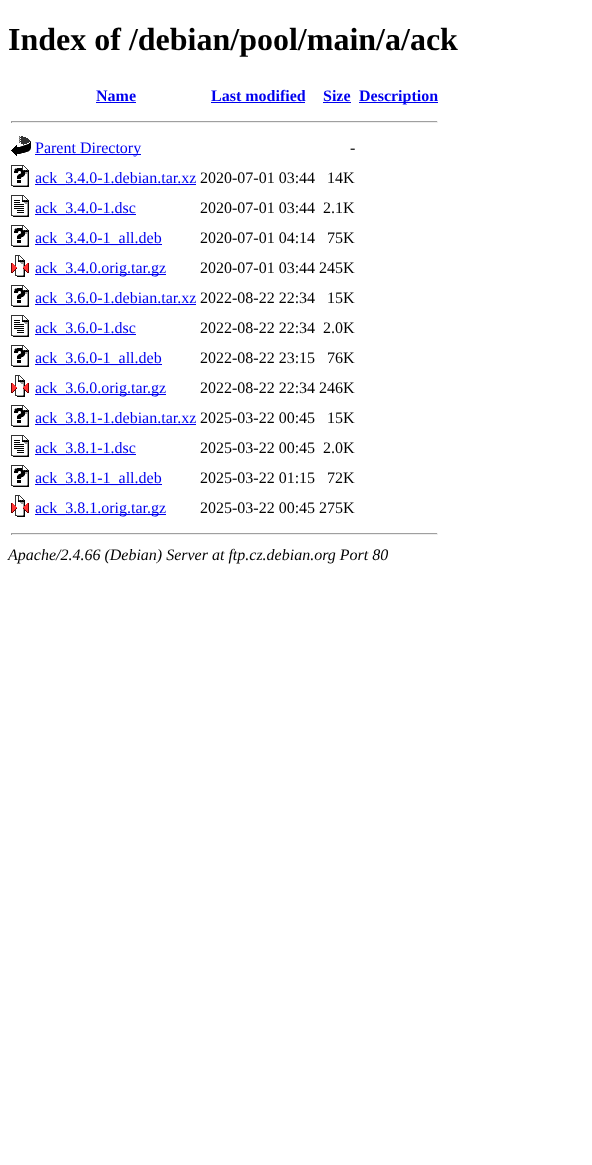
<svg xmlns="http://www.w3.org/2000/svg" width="592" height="1165">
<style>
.a{font:bold 32px Liberation Serif;fill:#000}
.b{font:bold 16px Liberation Serif;fill:#00e}
.c{font:16px Liberation Serif;fill:#00e}
.d{font:16px Liberation Serif;fill:#000}
.e{font:italic 16px Liberation Serif;fill:#000}
</style>
<rect width="100%" height="100%" fill="#fff"/>
<path fill="#00e" d="M96 102h40v1H96z"/>
<path fill="#00e" d="M211 102h94v1H211z"/>
<path fill="#00e" d="M323 102h28v1H323z"/>
<path fill="#00e" d="M359 102h79v1H359z"/>
<path fill="#9f9f9f" d="M11 121h427v1H11z"/>
<path fill="#eee" d="M437 121h1v2H437z"/>
<path fill="#eee" d="M11 122h427v1H11z"/>
<path fill="#9f9f9f" d="M11 121h1v2H11z"/>
<image href="1.png" x="11" y="136" width="20" height="20"/>
<path fill="#00e" d="M35 154h106v1H35z"/>
<image href="2.png" x="11" y="165" width="18" height="22"/>
<path fill="#00e" d="M35 184h161v1H35z"/>
<image href="3.png" x="11" y="195" width="18" height="22"/>
<path fill="#00e" d="M35 214h101v1H35z"/>
<image href="2.png" x="11" y="225" width="18" height="22"/>
<path fill="#00e" d="M35 244h127v1H35z"/>
<image href="4.png" x="11" y="255" width="18" height="22"/>
<path fill="#00e" d="M35 274h131v1H35z"/>
<image href="2.png" x="11" y="285" width="18" height="22"/>
<path fill="#00e" d="M35 304h161v1H35z"/>
<image href="3.png" x="11" y="315" width="18" height="22"/>
<path fill="#00e" d="M35 334h101v1H35z"/>
<image href="2.png" x="11" y="345" width="18" height="22"/>
<path fill="#00e" d="M35 364h127v1H35z"/>
<image href="4.png" x="11" y="375" width="18" height="22"/>
<path fill="#00e" d="M35 394h131v1H35z"/>
<image href="2.png" x="11" y="405" width="18" height="22"/>
<path fill="#00e" d="M35 424h161v1H35z"/>
<image href="3.png" x="11" y="435" width="18" height="22"/>
<path fill="#00e" d="M35 454h101v1H35z"/>
<image href="2.png" x="11" y="465" width="18" height="22"/>
<path fill="#00e" d="M35 484h127v1H35z"/>
<image href="4.png" x="11" y="495" width="18" height="22"/>
<path fill="#00e" d="M35 514h131v1H35z"/>
<path fill="#9f9f9f" d="M11 533h427v1H11z"/>
<path fill="#eee" d="M437 533h1v2H437z"/>
<path fill="#eee" d="M11 534h427v1H11z"/>
<path fill="#9f9f9f" d="M11 533h1v2H11z"/>
<text class="a" x="8" y="50">Index of /debian/pool/main/a/ack</text>
<text class="b" x="96" y="101">Name</text>
<text class="b" x="211" y="101">Last modified</text>
<text class="b" x="323" y="101">Size</text>
<text class="b" x="359" y="101">Description</text>
<text class="c" x="35" y="153">Parent Directory</text>
<text class="d" x="350" y="153">-</text>
<text class="c" x="35" y="183">ack_3.4.0-1.debian.tar.xz</text>
<text class="d" x="200" y="183">2020-07-01 03:44</text>
<text class="d" x="327" y="183">14K</text>
<text class="c" x="35" y="213">ack_3.4.0-1.dsc</text>
<text class="d" x="200" y="213">2020-07-01 03:44</text>
<text class="d" x="323" y="213">2.1K</text>
<text class="c" x="35" y="243">ack_3.4.0-1_all.deb</text>
<text class="d" x="200" y="243">2020-07-01 04:14</text>
<text class="d" x="327" y="243">75K</text>
<text class="c" x="35" y="273">ack_3.4.0.orig.tar.gz</text>
<text class="d" x="200" y="273">2020-07-01 03:44 245K</text>
<text class="c" x="35" y="303">ack_3.6.0-1.debian.tar.xz</text>
<text class="d" x="200" y="303">2022-08-22 22:34</text>
<text class="d" x="327" y="303">15K</text>
<text class="c" x="35" y="333">ack_3.6.0-1.dsc</text>
<text class="d" x="200" y="333">2022-08-22 22:34</text>
<text class="d" x="323" y="333">2.0K</text>
<text class="c" x="35" y="363">ack_3.6.0-1_all.deb</text>
<text class="d" x="200" y="363">2022-08-22 23:15</text>
<text class="d" x="327" y="363">76K</text>
<text class="c" x="35" y="393">ack_3.6.0.orig.tar.gz</text>
<text class="d" x="200" y="393">2022-08-22 22:34 246K</text>
<text class="c" x="35" y="423">ack_3.8.1-1.debian.tar.xz</text>
<text class="d" x="200" y="423">2025-03-22 00:45</text>
<text class="d" x="327" y="423">15K</text>
<text class="c" x="35" y="453">ack_3.8.1-1.dsc</text>
<text class="d" x="200" y="453">2025-03-22 00:45</text>
<text class="d" x="323" y="453">2.0K</text>
<text class="c" x="35" y="483">ack_3.8.1-1_all.deb</text>
<text class="d" x="200" y="483">2025-03-22 01:15</text>
<text class="d" x="327" y="483">72K</text>
<text class="c" x="35" y="513">ack_3.8.1.orig.tar.gz</text>
<text class="d" x="200" y="513">2025-03-22 00:45 275K</text>
<text class="e" x="8" y="560">Apache/2.4.66 (Debian) Server at ftp.cz.debian.org Port 80</text>
</svg>
